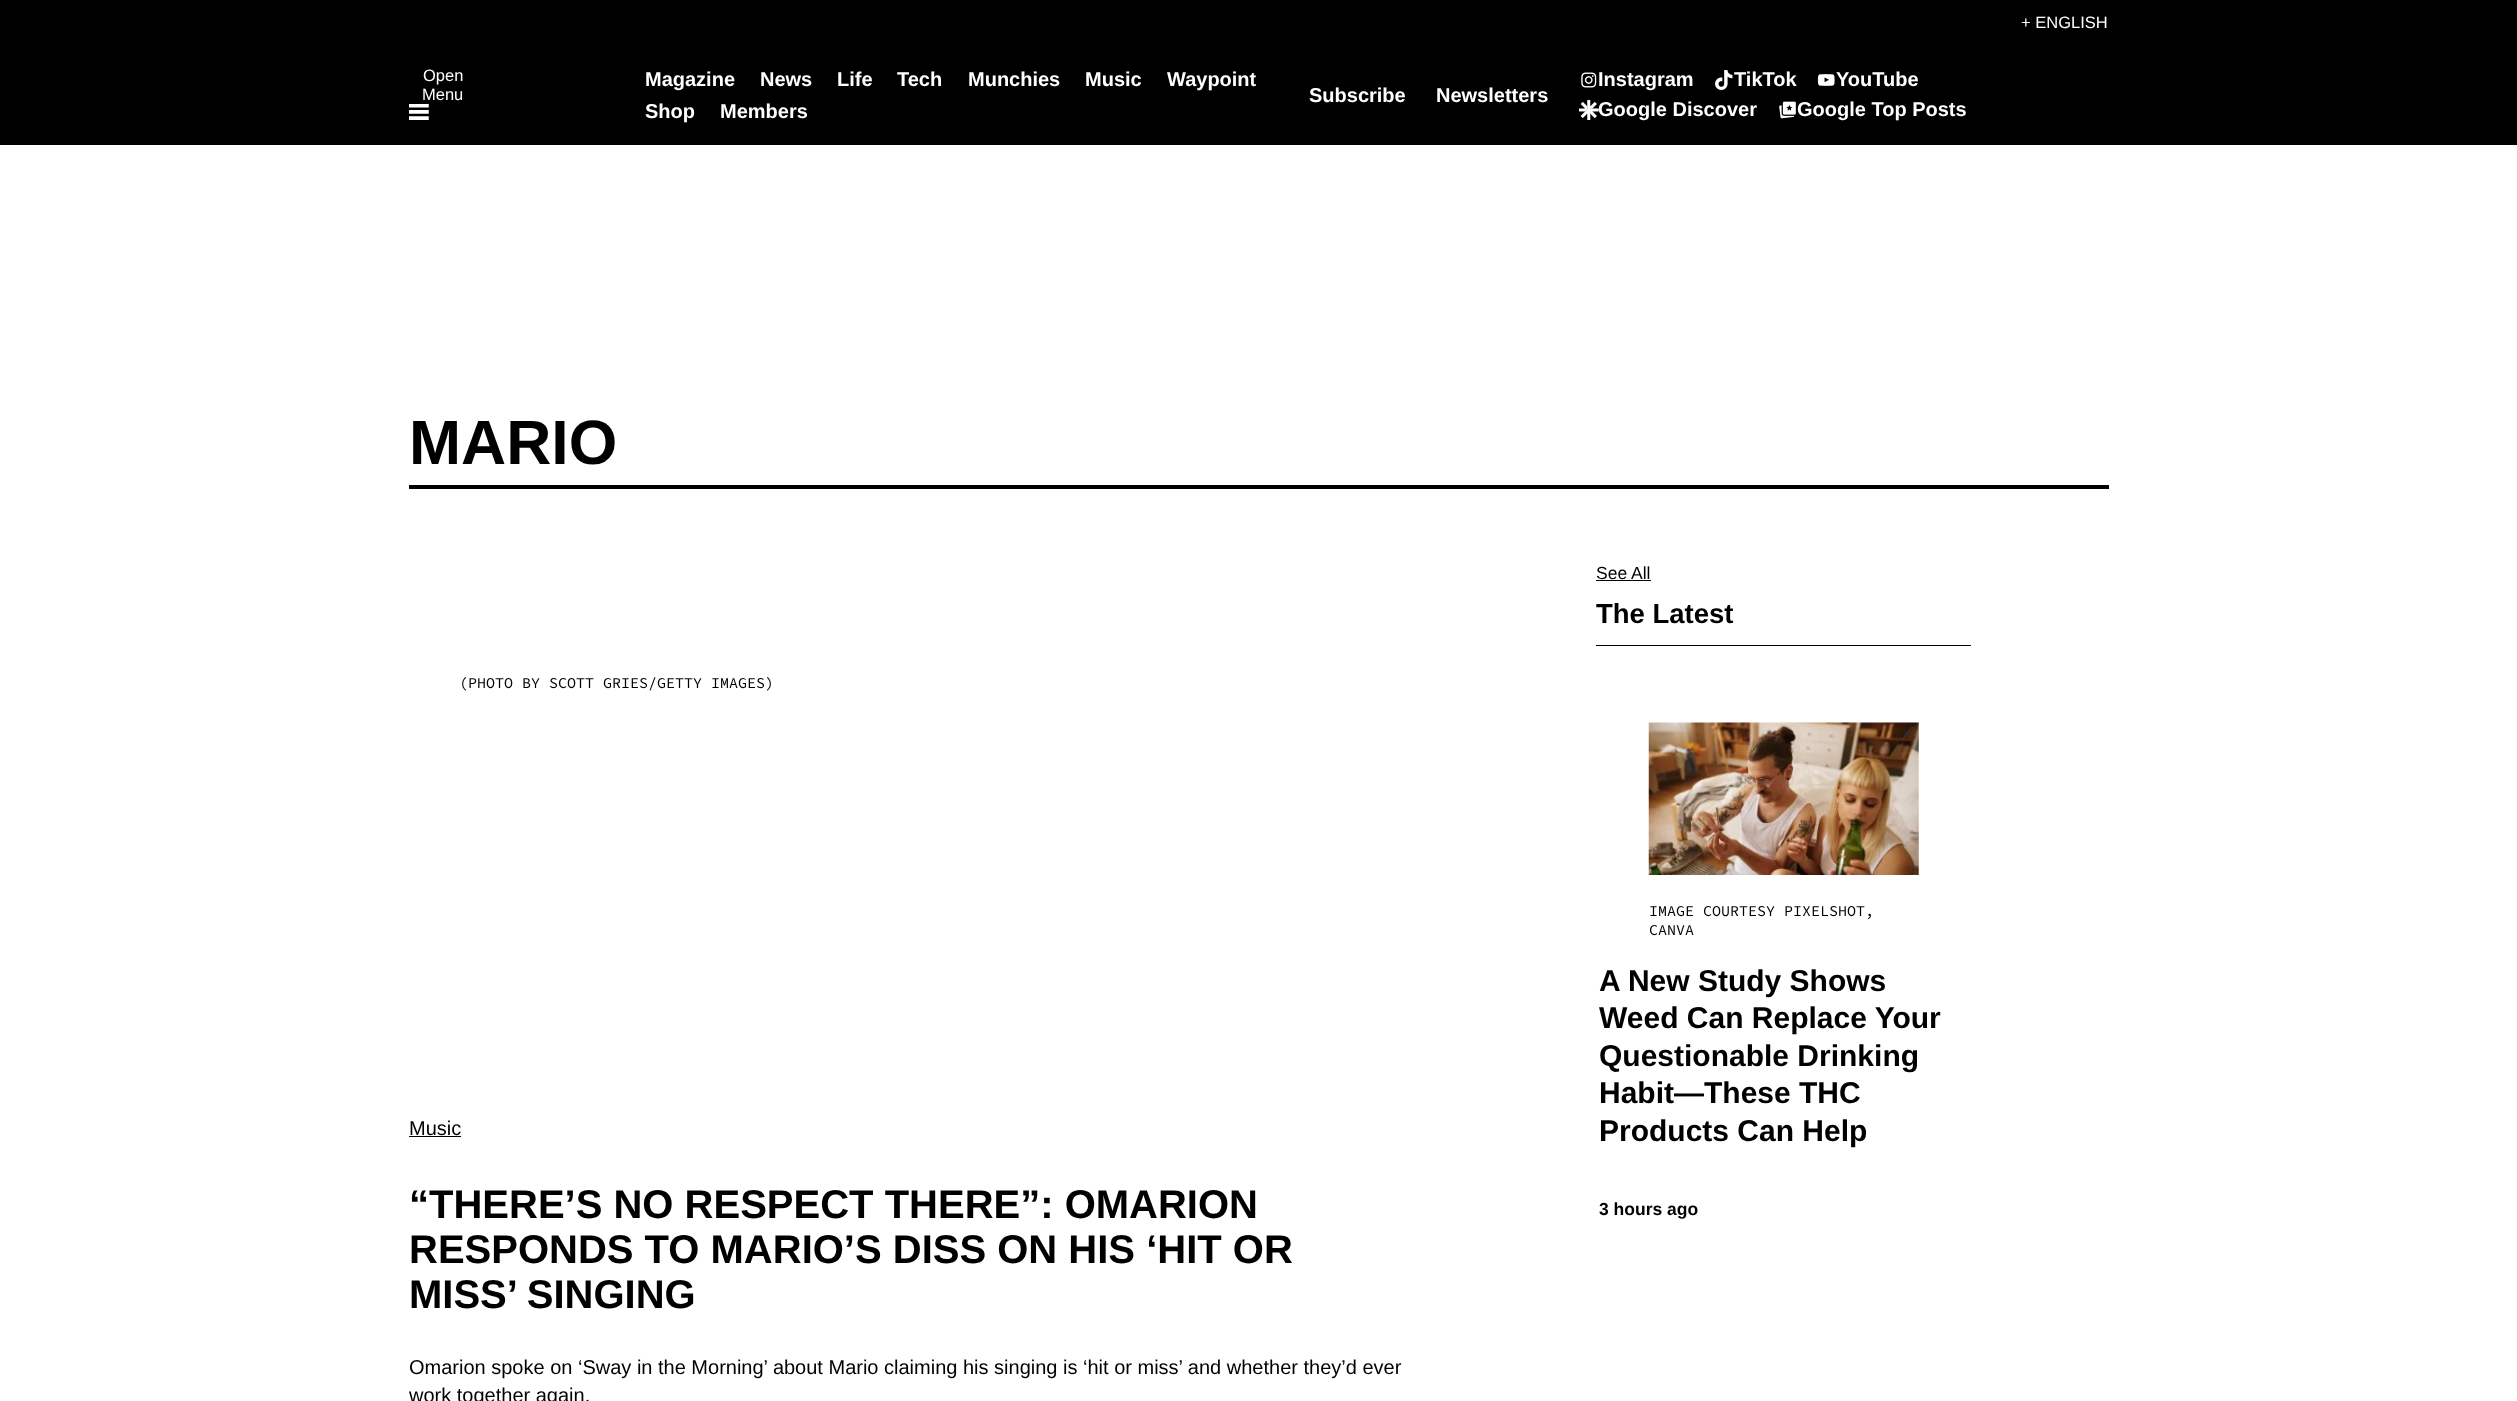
<svg xmlns="http://www.w3.org/2000/svg" width="2517" height="1401">
<style>
.a{font:16.5px Liberation Sans;fill:#fff}
.b{font:bold 20px Liberation Sans;fill:#fff}
.c{font:bold 62.5px Liberation Sans;fill:#000}
.d{font:15px Source Code Pro;fill:#000}
.e{font:20px Liberation Sans;fill:#000}
.f{font:bold 40px Liberation Sans;fill:#000}
.g{font:17.5px Liberation Sans;fill:#000}
.h{font:bold 27.5px Liberation Sans;fill:#000}
.i{font:bold 30px Liberation Sans;fill:#000}
.j{font:bold 17.5px Liberation Sans;fill:#000}
</style>
<rect width="100%" height="100%" fill="#fff"/>
<path fill="#000" d="M0 0h2517v145H0z"/>
<image href="1.png" x="409" y="104" width="20" height="16"/>
<image href="2.png" x="1581" y="72" width="16" height="16"/>
<image href="3.png" x="1715" y="70" width="18" height="20"/>
<image href="4.png" x="1817" y="74" width="18" height="12"/>
<image href="6.png" x="1779" y="101" width="17" height="18"/>
<path fill="#000" d="M409 485h1700v4H409z"/>
<path fill="#000" d="M409 1136h52v1H409z"/>
<path fill="#000" d="M1596 645h375v1H1596z"/>
<path fill="#000" d="M1596 580h55v1H1596z"/>
<image href="7.png" x="1648" y="722" width="271" height="153"/>
<text class="a" x="2021" y="28">+ ENGLISH</text>
<text class="a" x="423" y="81">Open</text>
<text class="a" x="422" y="100">Menu</text>
<text class="b" x="645" y="86">Magazine</text>
<text class="b" x="760" y="86">News</text>
<text class="b" x="837" y="86">Life</text>
<text class="b" x="897" y="86">Tech</text>
<text class="b" x="968" y="86">Munchies</text>
<text class="b" x="1085" y="86">Music</text>
<text class="b" x="1167" y="86">Waypoint</text>
<text class="b" x="645" y="118">Shop</text>
<text class="b" x="720" y="118">Members</text>
<text class="b" x="1309" y="102">Subscribe</text>
<text class="b" x="1436" y="102">Newsletters</text>
<text class="b" x="1598" y="86">Instagram</text>
<text class="b" x="1734" y="86">TikTok</text>
<text class="b" x="1836" y="86">YouTube</text>
<text class="b" x="1598" y="116">Google Discover</text>
<image href="5.png" x="1579" y="100" width="20" height="20"/>
<text class="b" x="1797" y="116">Google Top Posts</text>
<text class="c" x="409" y="464">MARIO</text>
<text class="d" x="459" y="688">(PHOTO BY SCOTT GRIES/GETTY IMAGES)</text>
<text class="e" x="409" y="1135">Music</text>
<text class="f" x="409" y="1218">“THERE’S NO RESPECT THERE”: OMARION</text>
<text class="f" x="409" y="1263">RESPONDS TO MARIO’S DISS ON HIS ‘HIT OR</text>
<text class="f" x="409" y="1308">MISS’ SINGING</text>
<text class="e" x="409" y="1374">Omarion spoke on ‘Sway in the Morning’ about Mario claiming his singing is ‘hit or miss’ and whether they’d ever</text>
<text class="e" x="409" y="1402">work together again.</text>
<text class="g" x="1596" y="579">See All</text>
<text class="h" x="1596" y="623">The Latest</text>
<text class="d" x="1649" y="916">IMAGE COURTESY PIXELSHOT,</text>
<text class="d" x="1649" y="935">CANVA</text>
<text class="i" x="1599" y="991">A New Study Shows</text>
<text class="i" x="1599" y="1028">Weed Can Replace Your</text>
<text class="i" x="1599" y="1066">Questionable Drinking</text>
<text class="i" x="1599" y="1103">Habit—These THC</text>
<text class="i" x="1599" y="1141">Products Can Help</text>
<text class="j" x="1599" y="1215">3 hours ago</text>
</svg>
